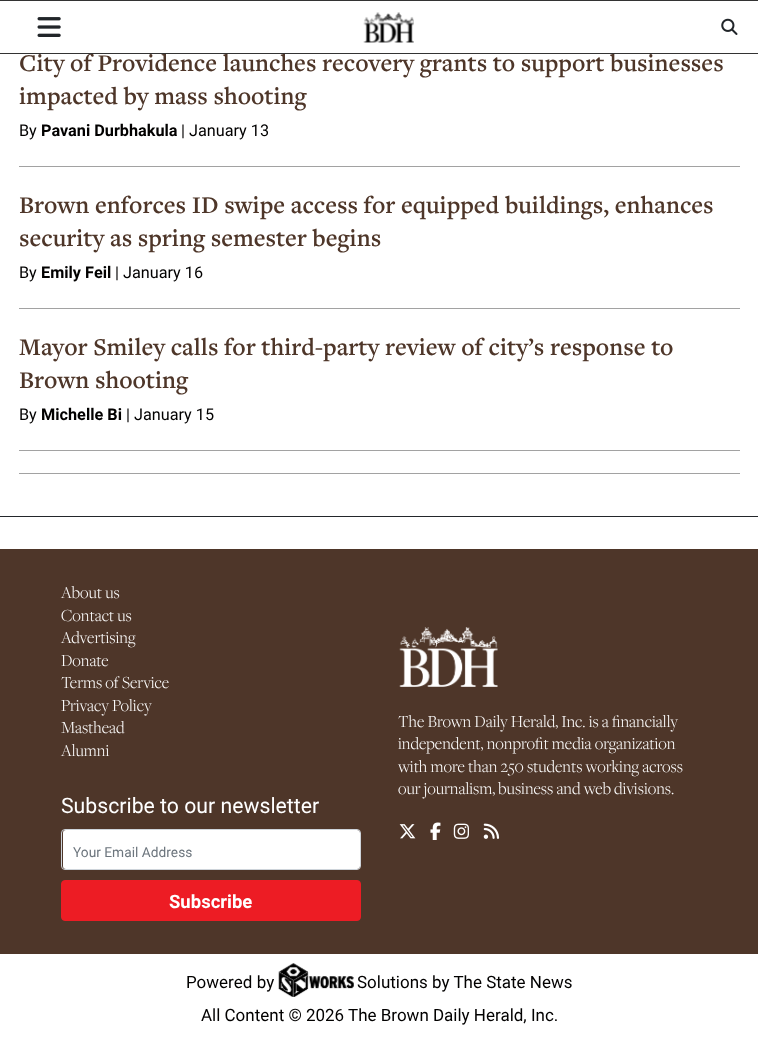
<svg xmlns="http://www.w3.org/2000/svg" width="758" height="1039">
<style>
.a{font:600 25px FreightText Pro;fill:#4e3629}
.b{font:16.25px Roboto;fill:#020100}
.c{font:bold 16.25px Roboto;fill:#020100}
.d{font:300 17.5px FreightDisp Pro;fill:#fff}
.e{font:21.25px Roboto;fill:#fff}
.f{font:13.75px Roboto;fill:#6c757d}
.g{font:bold 18.5px Roboto;fill:#fff}
.h{font:17px Roboto;fill:#020100}
</style>
<rect width="100%" height="100%" fill="#fff"/>
<path fill="#333" d="M0 0h758v1H0z"/>
<image href="1.png" x="37" y="17" width="24" height="20"/>
<image href="2.png" x="363" y="12" width="51" height="31"/>
<image href="3.png" x="721" y="18" width="17" height="17"/>
<path fill="#a2a2a2" d="M19 166h721v1H19z"/>
<path fill="#a2a2a2" d="M19 308h721v1H19z"/>
<path fill="#a2a2a2" d="M19 450h721v1H19z"/>
<path fill="#a2a2a2" d="M19 473h721v1H19z"/>
<path fill="#23272b" d="M0 516h758v1H0z"/>
<path fill="#4e3629" d="M0 549h758v405H0z"/>
<rect fill="#fff" x="63" y="830" width="297" height="39" rx="3"/>
<rect fill="none" stroke="#ced4da" x="61.5" y="829.5" width="299" height="40" rx="3.5"/>
<rect fill="#ed1c24" stroke="#ed1c24" x="61.5" y="880.5" width="299" height="40" rx="3.5"/>
<image href="4.png" x="399" y="627" width="99" height="60"/>
<image href="5.png" x="399" y="824" width="17" height="15"/>
<image href="6.png" x="430" y="822" width="11" height="18"/>
<image href="7.png" x="453" y="823" width="16" height="16"/>
<image href="8.png" x="483" y="823" width="17" height="16"/>
<image href="9.png" x="278" y="963" width="76" height="34"/>
<text class="a" x="19" y="71">City of Providence launches recovery grants to support businesses</text>
<path fill="#333" d="M0 53h758v1H0z"/>
<text class="a" x="19" y="104">impacted by mass shooting</text>
<text class="b" x="19" y="136">By</text>
<text class="c" x="41" y="136">Pavani Durbhakula</text>
<text class="b" x="181" y="136">| January 13</text>
<text class="a" x="19" y="213">Brown enforces ID swipe access for equipped buildings, enhances</text>
<text class="a" x="19" y="246">security as spring semester begins</text>
<text class="b" x="19" y="278">By</text>
<text class="c" x="41" y="278">Emily Feil</text>
<text class="b" x="115" y="278">| January 16</text>
<text class="a" x="19" y="355">Mayor Smiley calls for third-party review of city’s response to</text>
<text class="a" x="19" y="388">Brown shooting</text>
<text class="b" x="19" y="420">By</text>
<text class="c" x="41" y="420">Michelle Bi</text>
<text class="b" x="126" y="420">| January 15</text>
<text class="d" x="61" y="598">About us</text>
<text class="d" x="61" y="621">Contact us</text>
<text class="d" x="61" y="643">Advertising</text>
<text class="d" x="61" y="666">Donate</text>
<text class="d" x="61" y="688">Terms of Service</text>
<text class="d" x="61" y="711">Privacy Policy</text>
<text class="d" x="61" y="733">Masthead</text>
<text class="d" x="61" y="756">Alumni</text>
<text class="e" x="61" y="813">Subscribe to our newsletter</text>
<text class="f" x="73" y="857">Your Email Address</text>
<text class="g" x="169" y="908">Subscribe</text>
<text class="d" x="398" y="727">The Brown Daily Herald, Inc. is a financially</text>
<text class="d" x="398" y="749">independent, nonprofit media organization</text>
<text class="d" x="398" y="772">with more than 250 students working across</text>
<text class="d" x="398" y="794">our journalism, business and web divisions.</text>
<text class="h" x="186" y="988">Powered by</text>
<text class="h" x="357" y="988">Solutions by The State News</text>
<text class="h" x="201" y="1021">All Content © 2026 The Brown Daily Herald, Inc.</text>
</svg>
